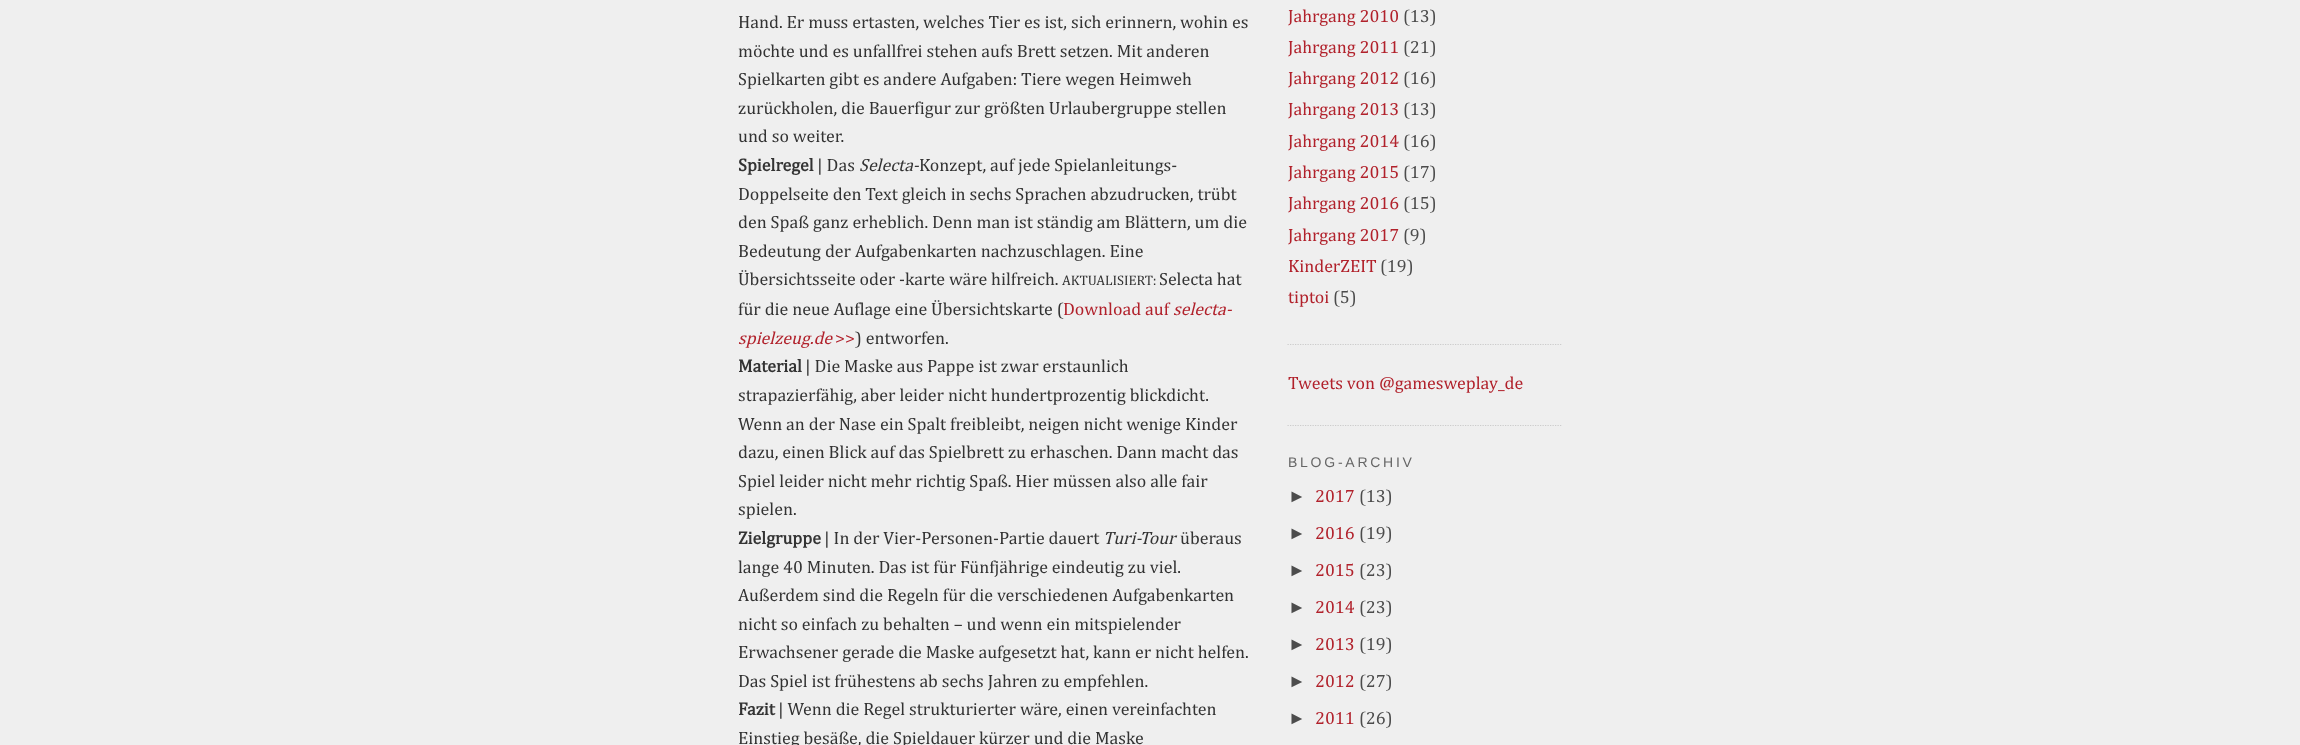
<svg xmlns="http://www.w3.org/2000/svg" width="2300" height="745">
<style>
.a{font:17.9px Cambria;fill:#333}
.b{font:bold 17.9px Cambria;fill:#333}
.c{font:italic 17.9px Cambria;fill:#333}
.d{font:14px Cambria;fill:#333}
.e{font:17.9px Cambria;fill:#b1212b}
.f{font:italic 17.9px Cambria;fill:#b1212b}
.g{font:17.9px Cambria;fill:#4c4c4c}
.h{font:14px Liberation Sans;letter-spacing:2.75px;fill:#666}
.i{font:17.9px Liberation Sans;fill:#4c4c4c}
</style>
<rect width="100%" height="100%" fill="#efefef"/>
<path fill="none" stroke="#ccc" stroke-width="1.2" stroke-dasharray="1.25 1.25" d="M1287.5 344.5h275"/>
<path fill="none" stroke="#ccc" stroke-width="1.2" stroke-dasharray="1.25 1.25" d="M1287.5 425.5h275"/>
<text class="a" x="738" y="28">Hand. Er muss ertasten, welches Tier es ist, sich erinnern, wohin es</text>
<text class="a" x="738" y="57">möchte und es unfallfrei stehen aufs Brett setzen. Mit anderen</text>
<text class="a" x="738" y="85">Spielkarten gibt es andere Aufgaben: Tiere wegen Heimweh</text>
<text class="a" x="738" y="114">zurückholen, die Bauerfigur zur größten Urlaubergruppe stellen</text>
<text class="a" x="738" y="142">und so weiter.</text>
<text class="b" x="738" y="171">Spielregel</text>
<text class="a" x="817" y="171">| Das</text>
<text class="c" x="859" y="171">Selecta-</text>
<text class="a" x="919" y="171">Konzept, auf jede Spielanleitungs-</text>
<text class="a" x="738" y="200">Doppelseite den Text gleich in sechs Sprachen abzudrucken, trübt</text>
<text class="a" x="738" y="228">den Spaß ganz erheblich. Denn man ist ständig am Blättern, um die</text>
<text class="a" x="738" y="257">Bedeutung der Aufgabenkarten nachzuschlagen. Eine</text>
<text class="a" x="738" y="285">Übersichtsseite oder -karte wäre hilfreich.</text>
<text class="d" x="1062" y="285">AKTUALISIERT:</text>
<text class="a" x="1159" y="285">Selecta hat</text>
<text class="a" x="738" y="315">für die neue Auflage eine Übersichtskarte (</text>
<text class="e" x="1063" y="315">Download auf</text>
<text class="f" x="1173" y="315">selecta-</text>
<text class="f" x="738" y="344">spielzeug.de</text>
<text class="e" x="835" y="344">&gt;&gt;</text>
<text class="a" x="855" y="344">) entworfen.</text>
<text class="b" x="738" y="372">Material</text>
<text class="a" x="805" y="372">| Die Maske aus Pappe ist zwar erstaunlich</text>
<text class="a" x="738" y="401">strapazierfähig, aber leider nicht hundertprozentig blickdicht.</text>
<text class="a" x="738" y="430">Wenn an der Nase ein Spalt freibleibt, neigen nicht wenige Kinder</text>
<text class="a" x="738" y="458">dazu, einen Blick auf das Spielbrett zu erhaschen. Dann macht das</text>
<text class="a" x="738" y="487">Spiel leider nicht mehr richtig Spaß. Hier müssen also alle fair</text>
<text class="a" x="738" y="515">spielen.</text>
<text class="b" x="738" y="544">Zielgruppe</text>
<text class="a" x="824" y="544">| In der Vier-Personen-Partie dauert</text>
<text class="c" x="1103" y="544">Turi-Tour</text>
<text class="a" x="1180" y="544">überaus</text>
<text class="a" x="738" y="573">lange 40 Minuten. Das ist für Fünfjährige eindeutig zu viel.</text>
<text class="a" x="738" y="601">Außerdem sind die Regeln für die verschiedenen Aufgabenkarten</text>
<text class="a" x="738" y="630">nicht so einfach zu behalten – und wenn ein mitspielender</text>
<text class="a" x="738" y="658">Erwachsener gerade die Maske aufgesetzt hat, kann er nicht helfen.</text>
<text class="a" x="738" y="687">Das Spiel ist frühestens ab sechs Jahren zu empfehlen.</text>
<text class="b" x="738" y="715">Fazit</text>
<text class="a" x="778" y="715">| Wenn die Regel strukturierter wäre, einen vereinfachten</text>
<text class="a" x="738" y="744">Einstieg besäße, die Spieldauer kürzer und die Maske</text>
<text class="e" x="1288" y="22">Jahrgang 2010</text>
<text class="g" x="1403" y="22">(13)</text>
<text class="e" x="1288" y="53">Jahrgang 2011</text>
<text class="g" x="1403" y="53">(21)</text>
<text class="e" x="1288" y="84">Jahrgang 2012</text>
<text class="g" x="1403" y="84">(16)</text>
<text class="e" x="1288" y="115">Jahrgang 2013</text>
<text class="g" x="1403" y="115">(13)</text>
<text class="e" x="1288" y="147">Jahrgang 2014</text>
<text class="g" x="1403" y="147">(16)</text>
<text class="e" x="1288" y="178">Jahrgang 2015</text>
<text class="g" x="1403" y="178">(17)</text>
<text class="e" x="1288" y="209">Jahrgang 2016</text>
<text class="g" x="1403" y="209">(15)</text>
<text class="e" x="1288" y="241">Jahrgang 2017</text>
<text class="g" x="1403" y="241">(9)</text>
<text class="e" x="1288" y="272">KinderZEIT</text>
<text class="g" x="1380" y="272">(19)</text>
<text class="e" x="1288" y="303">tiptoi</text>
<text class="g" x="1333" y="303">(5)</text>
<text class="e" x="1288" y="389">Tweets von @gamesweplay_de</text>
<text class="h" x="1288" y="467">BLOG-ARCHIV</text>
<text class="i" x="1288" y="502">►</text>
<text class="e" x="1315" y="502">2017</text>
<text class="g" x="1359" y="502">(13)</text>
<text class="i" x="1288" y="539">►</text>
<text class="e" x="1315" y="539">2016</text>
<text class="g" x="1359" y="539">(19)</text>
<text class="i" x="1288" y="576">►</text>
<text class="e" x="1315" y="576">2015</text>
<text class="g" x="1359" y="576">(23)</text>
<text class="i" x="1288" y="613">►</text>
<text class="e" x="1315" y="613">2014</text>
<text class="g" x="1359" y="613">(23)</text>
<text class="i" x="1288" y="650">►</text>
<text class="e" x="1315" y="650">2013</text>
<text class="g" x="1359" y="650">(19)</text>
<text class="i" x="1288" y="687">►</text>
<text class="e" x="1315" y="687">2012</text>
<text class="g" x="1359" y="687">(27)</text>
<text class="i" x="1288" y="724">►</text>
<text class="e" x="1315" y="724">2011</text>
<text class="g" x="1359" y="724">(26)</text>
</svg>
